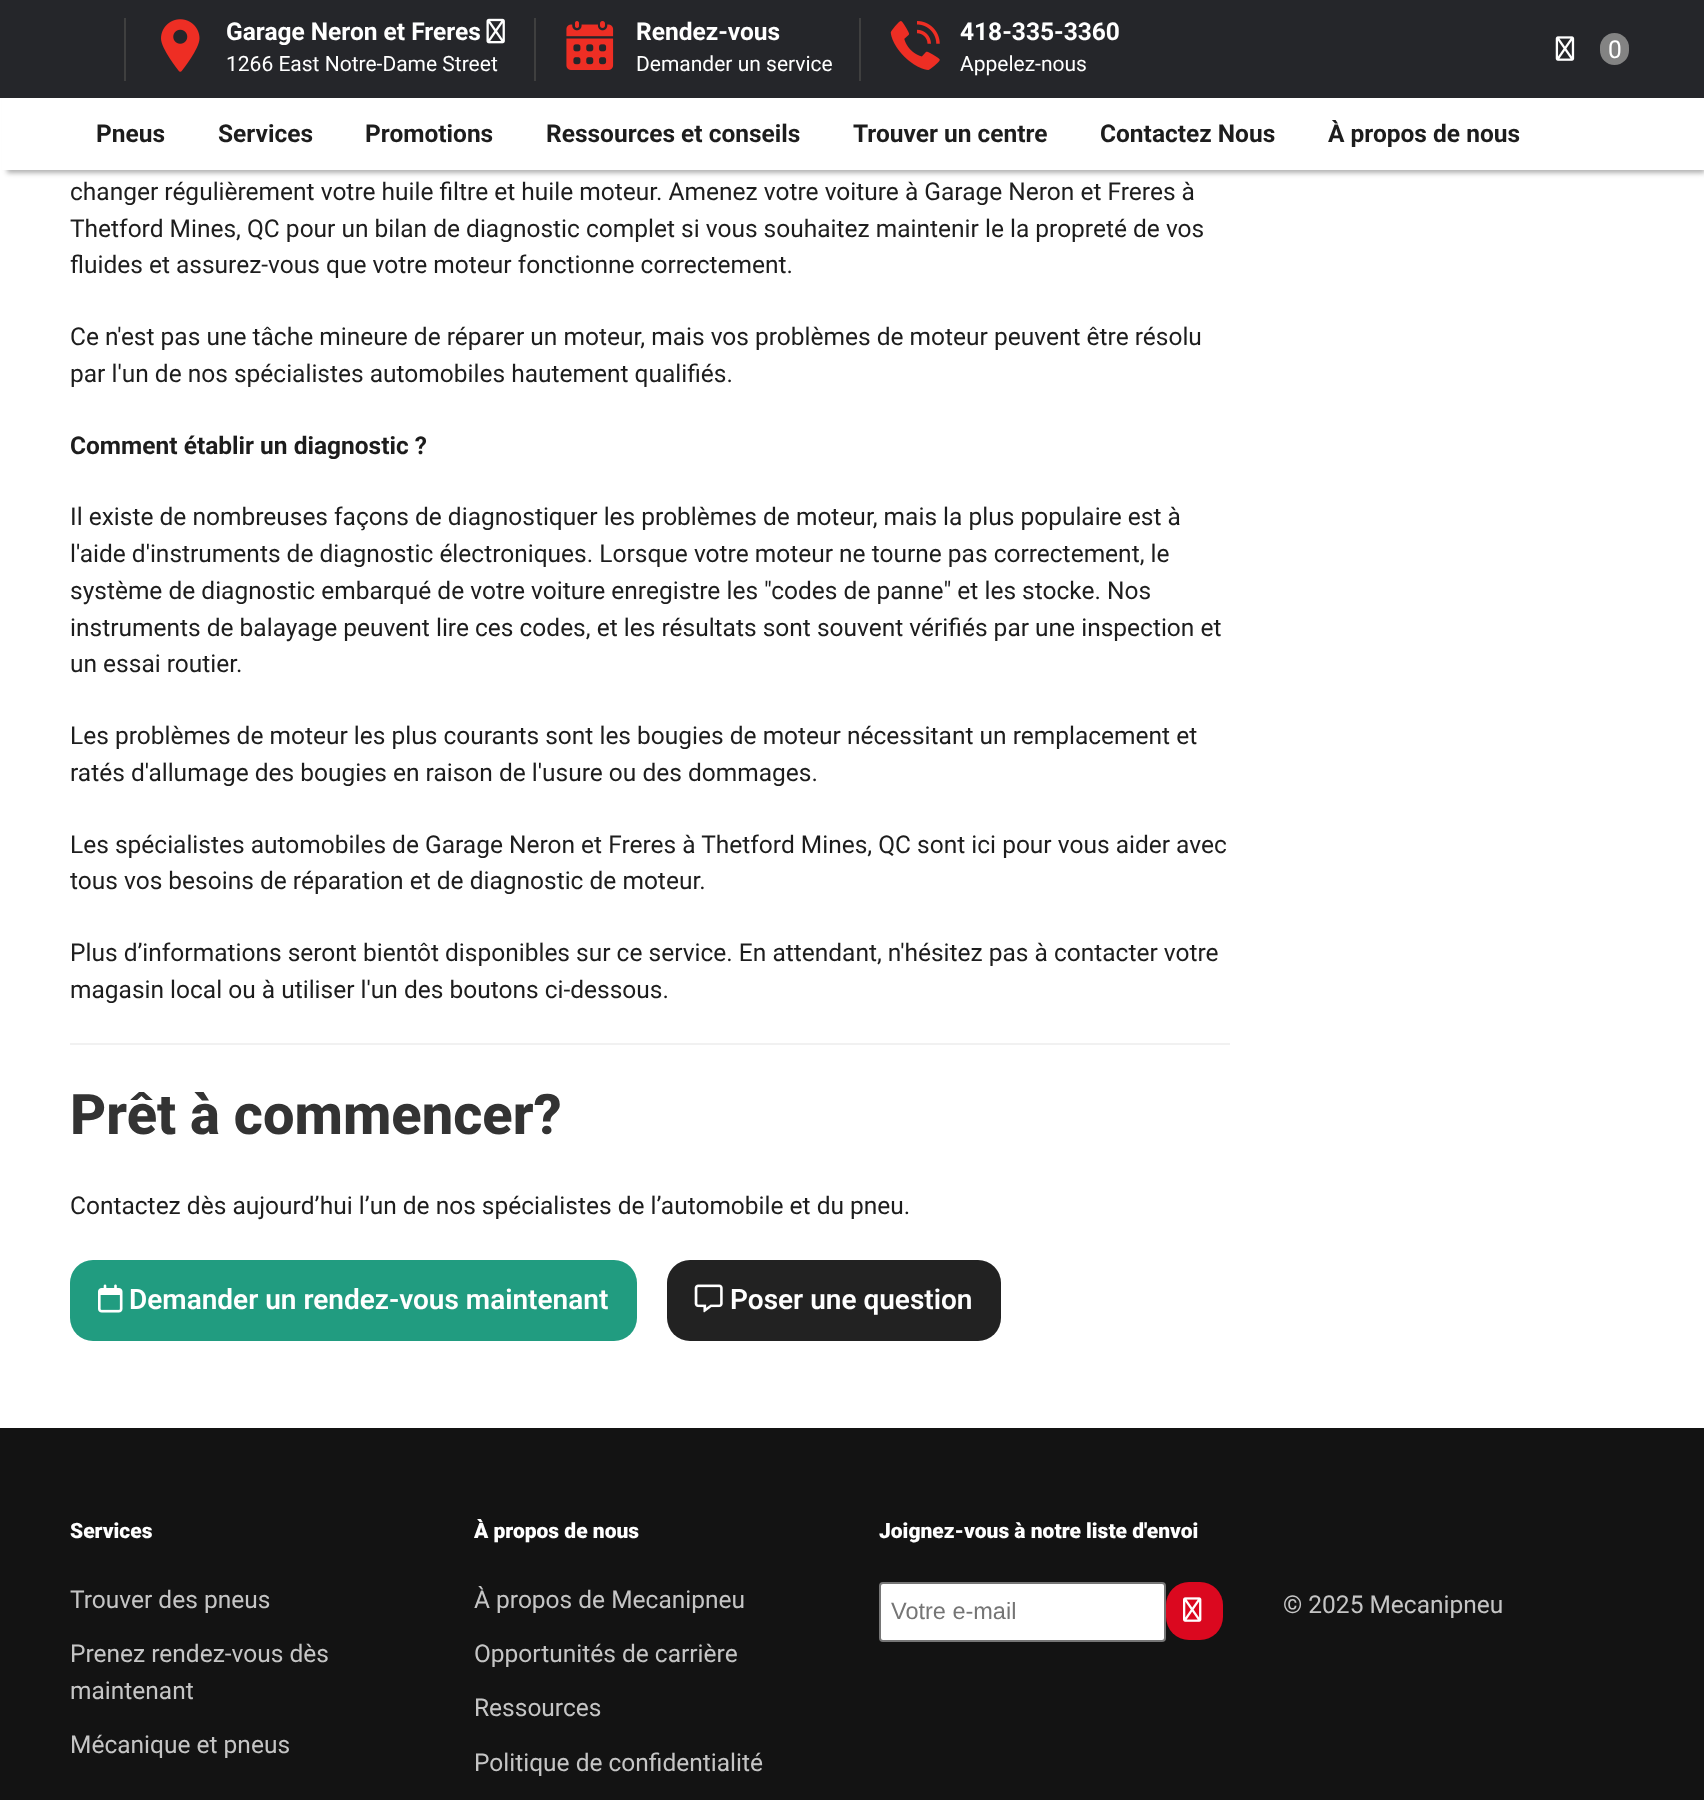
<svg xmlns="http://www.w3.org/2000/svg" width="1704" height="1800">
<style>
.a{font:bold 24.5px Roboto;fill:#fff}
.b{font:21px Roboto;fill:#fff}
.c{font:24.5px Roboto;fill:#fff}
.d{font:bold 24.5px Roboto;fill:#1d1d1d}
.e{font:24.5px Roboto;fill:#1d1d1d}
.f{font:800 56px Roboto;fill:#333}
.g{font:600 28px Roboto;fill:#fff}
.h{font:900 21px Roboto;fill:#fff}
.i{font:24.5px Roboto;fill:#c5c5c5}
.j{font:23.5px Liberation Sans;fill:#757575}
</style>
<rect width="100%" height="100%" fill="#fff"/>
<path fill="#0000004f" filter="blur(2.5px)" d="M7 11h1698v162H7z"/>
<path fill="#fff" d="M2 98h1702v72H2z"/>
<path fill="#25262a" d="M0 0h1704v98H0z"/>
<path fill="#3f3f3f" d="M124 18h2v63H124z"/>
<image href="1.png" x="161" y="19" width="39" height="53"/>
<image href="2.png" x="486" y="18" width="19" height="26"/>
<path fill="#3f3f3f" d="M534 18h2v63H534z"/>
<image href="3.png" x="566" y="21" width="48" height="49"/>
<path fill="#3f3f3f" d="M859 18h2v63H859z"/>
<image href="4.png" x="890" y="21" width="50" height="49"/>
<image href="5.png" x="1555" y="36" width="20" height="25"/>
<rect fill="#838383" x="1600" y="33" width="29" height="32" rx="14.5"/>
<path fill="#f1f1f1" d="M70 1043h1160v2H70z"/>
<rect fill="#219c80" x="70" y="1260" width="567" height="81" rx="23"/>
<image href="6.png" x="98" y="1284" width="25" height="29"/>
<rect fill="#222" x="667" y="1260" width="334" height="81" rx="23"/>
<image href="7.png" x="694" y="1284" width="29" height="29"/>
<path fill="#131313" d="M0 1428h1704v372H0z"/>
<rect fill="#fff" stroke="#767676" stroke-width="2" x="880" y="1583" width="285" height="58" rx="3"/>
<rect fill="#db081f" x="1166" y="1582" width="57" height="58" rx="23"/>
<image href="8.png" x="1183" y="1597" width="19" height="25"/>
<text class="a" x="226" y="40">Garage Neron et Freres</text>
<text class="b" x="226" y="71">1266 East Notre-Dame Street</text>
<text class="a" x="636" y="40">Rendez-vous</text>
<text class="b" x="636" y="71">Demander un service</text>
<text class="a" x="960" y="40">418-335-3360</text>
<text class="b" x="960" y="71">Appelez-nous</text>
<text class="c" x="1608" y="58">0</text>
<text class="d" x="96" y="142">Pneus</text>
<text class="d" x="218" y="142">Services</text>
<text class="d" x="365" y="142">Promotions</text>
<text class="d" x="546" y="142">Ressources et conseils</text>
<text class="d" x="853" y="142">Trouver un centre</text>
<text class="d" x="1100" y="142">Contactez Nous</text>
<text class="d" x="1328" y="142">À propos de nous</text>
<text class="e" x="70" y="200">changer régulièrement votre huile filtre et huile moteur. Amenez votre voiture à Garage Neron et Freres à</text>
<text class="e" x="70" y="237">Thetford Mines, QC pour un bilan de diagnostic complet si vous souhaitez maintenir le la propreté de vos</text>
<text class="e" x="70" y="273">fluides et assurez-vous que votre moteur fonctionne correctement.</text>
<text class="e" x="70" y="345">Ce n'est pas une tâche mineure de réparer un moteur, mais vos problèmes de moteur peuvent être résolu</text>
<text class="e" x="70" y="382">par l'un de nos spécialistes automobiles hautement qualifiés.</text>
<text class="d" x="70" y="454">Comment établir un diagnostic ?</text>
<text class="e" x="70" y="525">Il existe de nombreuses façons de diagnostiquer les problèmes de moteur, mais la plus populaire est à</text>
<text class="e" x="70" y="562">l'aide d'instruments de diagnostic électroniques. Lorsque votre moteur ne tourne pas correctement, le</text>
<text class="e" x="70" y="599">système de diagnostic embarqué de votre voiture enregistre les "codes de panne" et les stocke. Nos</text>
<text class="e" x="70" y="636">instruments de balayage peuvent lire ces codes, et les résultats sont souvent vérifiés par une inspection et</text>
<text class="e" x="70" y="672">un essai routier.</text>
<text class="e" x="70" y="744">Les problèmes de moteur les plus courants sont les bougies de moteur nécessitant un remplacement et</text>
<text class="e" x="70" y="781">ratés d'allumage des bougies en raison de l'usure ou des dommages.</text>
<text class="e" x="70" y="853">Les spécialistes automobiles de Garage Neron et Freres à Thetford Mines, QC sont ici pour vous aider avec</text>
<text class="e" x="70" y="889">tous vos besoins de réparation et de diagnostic de moteur.</text>
<text class="e" x="70" y="961">Plus d’informations seront bientôt disponibles sur ce service. En attendant, n'hésitez pas à contacter votre</text>
<text class="e" x="70" y="998">magasin local ou à utiliser l'un des boutons ci-dessous.</text>
<text class="f" x="70" y="1134">Prêt à commencer?</text>
<text class="e" x="70" y="1214">Contactez dès aujourd’hui l’un de nos spécialistes de l’automobile et du pneu.</text>
<text class="g" x="129" y="1309">Demander un rendez-vous maintenant</text>
<text class="g" x="730" y="1309">Poser une question</text>
<text class="h" x="70" y="1538">Services</text>
<text class="i" x="70" y="1608">Trouver des pneus</text>
<text class="i" x="70" y="1662">Prenez rendez-vous dès</text>
<text class="i" x="70" y="1699">maintenant</text>
<text class="i" x="70" y="1753">Mécanique et pneus</text>
<text class="h" x="474" y="1538">À propos de nous</text>
<text class="i" x="474" y="1608">À propos de Mecanipneu</text>
<text class="i" x="474" y="1662">Opportunités de carrière</text>
<text class="i" x="474" y="1716">Ressources</text>
<text class="i" x="474" y="1771">Politique de confidentialité</text>
<text class="h" x="879" y="1538">Joignez-vous à notre liste d'envoi</text>
<text class="j" x="891" y="1619">Votre e-mail</text>
<text class="i" x="1283" y="1613">© 2025 Mecanipneu</text>
</svg>
